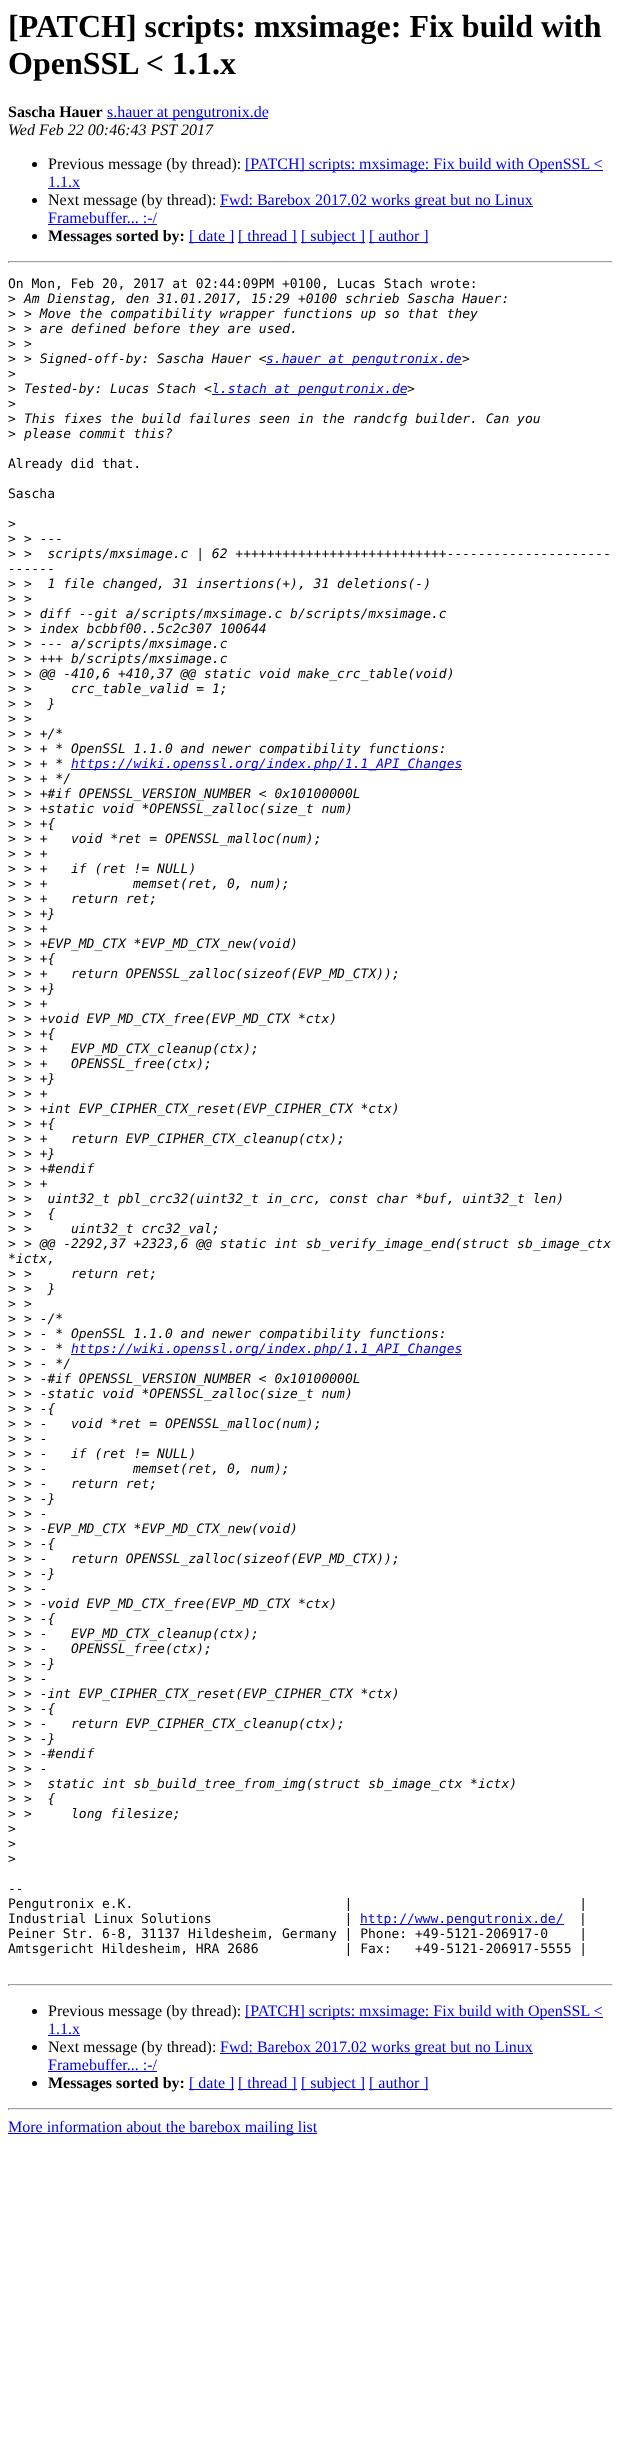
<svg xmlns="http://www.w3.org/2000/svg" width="621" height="2447">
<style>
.a{font:bold 32px Liberation Serif;fill:#000}
.b{font:bold 16px Liberation Serif;fill:#000}
.c{font:16px Liberation Serif;fill:#00e}
.d{font:italic 16px Liberation Serif;fill:#000}
.e{font:16px Liberation Serif;fill:#000}
.f{font:13px DejaVu Sans Mono;fill:#000}
.g{font:italic 13px DejaVu Sans Mono;fill:#000}
.h{font:italic 13px DejaVu Sans Mono;fill:#00e}
.i{font:13px DejaVu Sans Mono;fill:#00e}
</style>
<rect width="100%" height="100%" fill="#fff"/>
<path fill="#00e" d="M107 118h161v1H107z"/>
<circle fill="#000" cx="34.5" cy="164.5" r="2.5"/>
<path fill="#00e" d="M245 170h358v1H245z"/>
<path fill="#00e" d="M48 188h32v1H48z"/>
<circle fill="#000" cx="34.5" cy="200.5" r="2.5"/>
<path fill="#00e" d="M220 206h313v1H220z"/>
<path fill="#00e" d="M48 224h109v1H48z"/>
<circle fill="#000" cx="34.5" cy="236.5" r="2.5"/>
<path fill="#00e" d="M189 242h45v1H189z"/>
<path fill="#00e" d="M238 242h59v1H238z"/>
<path fill="#00e" d="M301 242h64v1H301z"/>
<path fill="#00e" d="M369 242h59v1H369z"/>
<path fill="#9f9f9f" d="M8 261h605v1H8z"/>
<path fill="#eee" d="M612 261h1v2H612z"/>
<path fill="#eee" d="M8 262h605v1H8z"/>
<path fill="#9f9f9f" d="M8 261h1v2H8z"/>
<path fill="#00e" d="M266 364h196v1H266z"/>
<path fill="#00e" d="M212 394h195v1H212z"/>
<path fill="#00e" d="M71 769h391v1H71z"/>
<path fill="#00e" d="M71 1354h391v1H71z"/>
<path fill="#00e" d="M360 1924h204v1H360z"/>
<path fill="#9f9f9f" d="M8 1984h605v1H8z"/>
<path fill="#eee" d="M612 1984h1v2H612z"/>
<path fill="#eee" d="M8 1985h605v1H8z"/>
<path fill="#9f9f9f" d="M8 1984h1v2H8z"/>
<circle fill="#000" cx="34.5" cy="2011.5" r="2.5"/>
<path fill="#00e" d="M245 2017h358v1H245z"/>
<path fill="#00e" d="M48 2035h32v1H48z"/>
<circle fill="#000" cx="34.5" cy="2047.5" r="2.5"/>
<path fill="#00e" d="M220 2053h313v1H220z"/>
<path fill="#00e" d="M48 2071h109v1H48z"/>
<circle fill="#000" cx="34.5" cy="2083.5" r="2.5"/>
<path fill="#00e" d="M189 2089h45v1H189z"/>
<path fill="#00e" d="M238 2089h59v1H238z"/>
<path fill="#00e" d="M301 2089h64v1H301z"/>
<path fill="#00e" d="M369 2089h59v1H369z"/>
<path fill="#9f9f9f" d="M8 2108h605v1H8z"/>
<path fill="#eee" d="M612 2108h1v2H612z"/>
<path fill="#eee" d="M8 2109h605v1H8z"/>
<path fill="#9f9f9f" d="M8 2108h1v2H8z"/>
<path fill="#00e" d="M8 2133h309v1H8z"/>
<text class="a" x="8" y="37">[PATCH] scripts: mxsimage: Fix build with</text>
<text class="a" x="8" y="74">OpenSSL &lt; 1.1.x</text>
<text class="b" x="8" y="117">Sascha Hauer</text>
<text class="c" x="107" y="117">s.hauer at pengutronix.de</text>
<text class="d" x="8" y="135">Wed Feb 22 00:46:43 PST 2017</text>
<text class="e" x="48" y="169">Previous message (by thread):</text>
<text class="c" x="245" y="169">[PATCH] scripts: mxsimage: Fix build with OpenSSL &lt;</text>
<text class="c" x="48" y="187">1.1.x</text>
<text class="e" x="48" y="205">Next message (by thread):</text>
<text class="c" x="220" y="205">Fwd: Barebox 2017.02 works great but no Linux</text>
<text class="c" x="48" y="223">Framebuffer... :-/</text>
<text class="b" x="48" y="241">Messages sorted by:</text>
<text class="c" x="189" y="241">[ date ]</text>
<text class="c" x="238" y="241">[ thread ]</text>
<text class="c" x="301" y="241">[ subject ]</text>
<text class="c" x="369" y="241">[ author ]</text>
<text class="f" x="8" y="288">On Mon, Feb 20, 2017 at 02:44:09PM +0100, Lucas Stach wrote:</text>
<text class="f" x="8" y="303">&gt;</text>
<text class="g" x="24" y="303">Am Dienstag, den 31.01.2017, 15:29 +0100 schrieb Sascha Hauer:</text>
<text class="f" x="8" y="318">&gt;</text>
<text class="g" x="24" y="318">&gt; Move the compatibility wrapper functions up so that they</text>
<text class="f" x="8" y="333">&gt;</text>
<text class="g" x="24" y="333">&gt; are defined before they are used.</text>
<text class="f" x="8" y="348">&gt;</text>
<text class="g" x="24" y="348">&gt;</text>
<text class="f" x="8" y="363">&gt;</text>
<text class="g" x="24" y="363">&gt; Signed-off-by: Sascha Hauer &lt;</text>
<text class="h" x="266" y="363">s.hauer at pengutronix.de</text>
<text class="g" x="462" y="363">&gt;</text>
<text class="f" x="8" y="378">&gt;</text>
<text class="f" x="8" y="393">&gt;</text>
<text class="g" x="24" y="393">Tested-by: Lucas Stach &lt;</text>
<text class="h" x="212" y="393">l.stach at pengutronix.de</text>
<text class="g" x="407" y="393">&gt;</text>
<text class="f" x="8" y="408">&gt;</text>
<text class="f" x="8" y="423">&gt;</text>
<text class="g" x="24" y="423">This fixes the build failures seen in the randcfg builder. Can you</text>
<text class="f" x="8" y="438">&gt;</text>
<text class="g" x="24" y="438">please commit this?</text>
<text class="f" x="8" y="468">Already did that.</text>
<text class="f" x="8" y="498">Sascha</text>
<text class="f" x="8" y="528">&gt;</text>
<text class="f" x="8" y="543">&gt;</text>
<text class="g" x="24" y="543">&gt; ---</text>
<text class="f" x="8" y="558">&gt;</text>
<text class="g" xml:space="preserve" x="24" y="558">&gt;  scripts/mxsimage.c | 62 +++++++++++++++++++++++++++---------------------</text>
<text class="g" x="8" y="573">------</text>
<text class="f" x="8" y="588">&gt;</text>
<text class="g" xml:space="preserve" x="24" y="588">&gt;  1 file changed, 31 insertions(+), 31 deletions(-)</text>
<text class="f" x="8" y="603">&gt;</text>
<text class="g" x="24" y="603">&gt;</text>
<text class="f" x="8" y="618">&gt;</text>
<text class="g" x="24" y="618">&gt; diff --git a/scripts/mxsimage.c b/scripts/mxsimage.c</text>
<text class="f" x="8" y="633">&gt;</text>
<text class="g" x="24" y="633">&gt; index bcbbf00..5c2c307 100644</text>
<text class="f" x="8" y="648">&gt;</text>
<text class="g" x="24" y="648">&gt; --- a/scripts/mxsimage.c</text>
<text class="f" x="8" y="663">&gt;</text>
<text class="g" x="24" y="663">&gt; +++ b/scripts/mxsimage.c</text>
<text class="f" x="8" y="678">&gt;</text>
<text class="g" x="24" y="678">&gt; @@ -410,6 +410,37 @@ static void make_crc_table(void)</text>
<text class="f" x="8" y="693">&gt;</text>
<text class="g" x="24" y="693">&gt;</text>
<text class="g" x="71" y="693">crc_table_valid = 1;</text>
<text class="f" x="8" y="708">&gt;</text>
<text class="g" xml:space="preserve" x="24" y="708">&gt;  }</text>
<text class="f" x="8" y="723">&gt;</text>
<text class="g" x="24" y="723">&gt;</text>
<text class="f" x="8" y="738">&gt;</text>
<text class="g" x="24" y="738">&gt; +/*</text>
<text class="f" x="8" y="753">&gt;</text>
<text class="g" x="24" y="753">&gt; + * OpenSSL 1.1.0 and newer compatibility functions:</text>
<text class="f" x="8" y="768">&gt;</text>
<text class="g" x="24" y="768">&gt; + *</text>
<text class="h" x="71" y="768">https://wiki.openssl.org/index.php/1.1_API_Changes</text>
<text class="f" x="8" y="783">&gt;</text>
<text class="g" x="24" y="783">&gt; + */</text>
<text class="f" x="8" y="798">&gt;</text>
<text class="g" x="24" y="798">&gt; +#if OPENSSL_VERSION_NUMBER &lt; 0x10100000L</text>
<text class="f" x="8" y="813">&gt;</text>
<text class="g" x="24" y="813">&gt; +static void *OPENSSL_zalloc(size_t num)</text>
<text class="f" x="8" y="828">&gt;</text>
<text class="g" x="24" y="828">&gt; +{</text>
<text class="f" x="8" y="843">&gt;</text>
<text class="g" x="24" y="843">&gt; +</text>
<text class="g" x="71" y="843">void *ret = OPENSSL_malloc(num);</text>
<text class="f" x="8" y="858">&gt;</text>
<text class="g" x="24" y="858">&gt; +</text>
<text class="f" x="8" y="873">&gt;</text>
<text class="g" x="24" y="873">&gt; +</text>
<text class="g" x="71" y="873">if (ret != NULL)</text>
<text class="f" x="8" y="888">&gt;</text>
<text class="g" x="24" y="888">&gt; +</text>
<text class="g" x="133" y="888">memset(ret, 0, num);</text>
<text class="f" x="8" y="903">&gt;</text>
<text class="g" x="24" y="903">&gt; +</text>
<text class="g" x="71" y="903">return ret;</text>
<text class="f" x="8" y="918">&gt;</text>
<text class="g" x="24" y="918">&gt; +}</text>
<text class="f" x="8" y="933">&gt;</text>
<text class="g" x="24" y="933">&gt; +</text>
<text class="f" x="8" y="948">&gt;</text>
<text class="g" x="24" y="948">&gt; +EVP_MD_CTX *EVP_MD_CTX_new(void)</text>
<text class="f" x="8" y="963">&gt;</text>
<text class="g" x="24" y="963">&gt; +{</text>
<text class="f" x="8" y="978">&gt;</text>
<text class="g" x="24" y="978">&gt; +</text>
<text class="g" x="71" y="978">return OPENSSL_zalloc(sizeof(EVP_MD_CTX));</text>
<text class="f" x="8" y="993">&gt;</text>
<text class="g" x="24" y="993">&gt; +}</text>
<text class="f" x="8" y="1008">&gt;</text>
<text class="g" x="24" y="1008">&gt; +</text>
<text class="f" x="8" y="1023">&gt;</text>
<text class="g" x="24" y="1023">&gt; +void EVP_MD_CTX_free(EVP_MD_CTX *ctx)</text>
<text class="f" x="8" y="1038">&gt;</text>
<text class="g" x="24" y="1038">&gt; +{</text>
<text class="f" x="8" y="1053">&gt;</text>
<text class="g" x="24" y="1053">&gt; +</text>
<text class="g" x="71" y="1053">EVP_MD_CTX_cleanup(ctx);</text>
<text class="f" x="8" y="1068">&gt;</text>
<text class="g" x="24" y="1068">&gt; +</text>
<text class="g" x="71" y="1068">OPENSSL_free(ctx);</text>
<text class="f" x="8" y="1083">&gt;</text>
<text class="g" x="24" y="1083">&gt; +}</text>
<text class="f" x="8" y="1098">&gt;</text>
<text class="g" x="24" y="1098">&gt; +</text>
<text class="f" x="8" y="1113">&gt;</text>
<text class="g" x="24" y="1113">&gt; +int EVP_CIPHER_CTX_reset(EVP_CIPHER_CTX *ctx)</text>
<text class="f" x="8" y="1128">&gt;</text>
<text class="g" x="24" y="1128">&gt; +{</text>
<text class="f" x="8" y="1143">&gt;</text>
<text class="g" x="24" y="1143">&gt; +</text>
<text class="g" x="71" y="1143">return EVP_CIPHER_CTX_cleanup(ctx);</text>
<text class="f" x="8" y="1158">&gt;</text>
<text class="g" x="24" y="1158">&gt; +}</text>
<text class="f" x="8" y="1173">&gt;</text>
<text class="g" x="24" y="1173">&gt; +#endif</text>
<text class="f" x="8" y="1188">&gt;</text>
<text class="g" x="24" y="1188">&gt; +</text>
<text class="f" x="8" y="1203">&gt;</text>
<text class="g" xml:space="preserve" x="24" y="1203">&gt;  uint32_t pbl_crc32(uint32_t in_crc, const char *buf, uint32_t len)</text>
<text class="f" x="8" y="1218">&gt;</text>
<text class="g" xml:space="preserve" x="24" y="1218">&gt;  {</text>
<text class="f" x="8" y="1233">&gt;</text>
<text class="g" x="24" y="1233">&gt;</text>
<text class="g" x="71" y="1233">uint32_t crc32_val;</text>
<text class="f" x="8" y="1248">&gt;</text>
<text class="g" x="24" y="1248">&gt; @@ -2292,37 +2323,6 @@ static int sb_verify_image_end(struct sb_image_ctx</text>
<text class="g" x="8" y="1263">*ictx,</text>
<text class="f" x="8" y="1278">&gt;</text>
<text class="g" x="24" y="1278">&gt;</text>
<text class="g" x="71" y="1278">return ret;</text>
<text class="f" x="8" y="1293">&gt;</text>
<text class="g" xml:space="preserve" x="24" y="1293">&gt;  }</text>
<text class="f" x="8" y="1308">&gt;</text>
<text class="g" x="24" y="1308">&gt;</text>
<text class="f" x="8" y="1323">&gt;</text>
<text class="g" x="24" y="1323">&gt; -/*</text>
<text class="f" x="8" y="1338">&gt;</text>
<text class="g" x="24" y="1338">&gt; - * OpenSSL 1.1.0 and newer compatibility functions:</text>
<text class="f" x="8" y="1353">&gt;</text>
<text class="g" x="24" y="1353">&gt; - *</text>
<text class="h" x="71" y="1353">https://wiki.openssl.org/index.php/1.1_API_Changes</text>
<text class="f" x="8" y="1368">&gt;</text>
<text class="g" x="24" y="1368">&gt; - */</text>
<text class="f" x="8" y="1383">&gt;</text>
<text class="g" x="24" y="1383">&gt; -#if OPENSSL_VERSION_NUMBER &lt; 0x10100000L</text>
<text class="f" x="8" y="1398">&gt;</text>
<text class="g" x="24" y="1398">&gt; -static void *OPENSSL_zalloc(size_t num)</text>
<text class="f" x="8" y="1413">&gt;</text>
<text class="g" x="24" y="1413">&gt; -{</text>
<text class="f" x="8" y="1428">&gt;</text>
<text class="g" x="24" y="1428">&gt; -</text>
<text class="g" x="71" y="1428">void *ret = OPENSSL_malloc(num);</text>
<text class="f" x="8" y="1443">&gt;</text>
<text class="g" x="24" y="1443">&gt; -</text>
<text class="f" x="8" y="1458">&gt;</text>
<text class="g" x="24" y="1458">&gt; -</text>
<text class="g" x="71" y="1458">if (ret != NULL)</text>
<text class="f" x="8" y="1473">&gt;</text>
<text class="g" x="24" y="1473">&gt; -</text>
<text class="g" x="133" y="1473">memset(ret, 0, num);</text>
<text class="f" x="8" y="1488">&gt;</text>
<text class="g" x="24" y="1488">&gt; -</text>
<text class="g" x="71" y="1488">return ret;</text>
<text class="f" x="8" y="1503">&gt;</text>
<text class="g" x="24" y="1503">&gt; -}</text>
<text class="f" x="8" y="1518">&gt;</text>
<text class="g" x="24" y="1518">&gt; -</text>
<text class="f" x="8" y="1533">&gt;</text>
<text class="g" x="24" y="1533">&gt; -EVP_MD_CTX *EVP_MD_CTX_new(void)</text>
<text class="f" x="8" y="1548">&gt;</text>
<text class="g" x="24" y="1548">&gt; -{</text>
<text class="f" x="8" y="1563">&gt;</text>
<text class="g" x="24" y="1563">&gt; -</text>
<text class="g" x="71" y="1563">return OPENSSL_zalloc(sizeof(EVP_MD_CTX));</text>
<text class="f" x="8" y="1578">&gt;</text>
<text class="g" x="24" y="1578">&gt; -}</text>
<text class="f" x="8" y="1593">&gt;</text>
<text class="g" x="24" y="1593">&gt; -</text>
<text class="f" x="8" y="1608">&gt;</text>
<text class="g" x="24" y="1608">&gt; -void EVP_MD_CTX_free(EVP_MD_CTX *ctx)</text>
<text class="f" x="8" y="1623">&gt;</text>
<text class="g" x="24" y="1623">&gt; -{</text>
<text class="f" x="8" y="1638">&gt;</text>
<text class="g" x="24" y="1638">&gt; -</text>
<text class="g" x="71" y="1638">EVP_MD_CTX_cleanup(ctx);</text>
<text class="f" x="8" y="1653">&gt;</text>
<text class="g" x="24" y="1653">&gt; -</text>
<text class="g" x="71" y="1653">OPENSSL_free(ctx);</text>
<text class="f" x="8" y="1668">&gt;</text>
<text class="g" x="24" y="1668">&gt; -}</text>
<text class="f" x="8" y="1683">&gt;</text>
<text class="g" x="24" y="1683">&gt; -</text>
<text class="f" x="8" y="1698">&gt;</text>
<text class="g" x="24" y="1698">&gt; -int EVP_CIPHER_CTX_reset(EVP_CIPHER_CTX *ctx)</text>
<text class="f" x="8" y="1713">&gt;</text>
<text class="g" x="24" y="1713">&gt; -{</text>
<text class="f" x="8" y="1728">&gt;</text>
<text class="g" x="24" y="1728">&gt; -</text>
<text class="g" x="71" y="1728">return EVP_CIPHER_CTX_cleanup(ctx);</text>
<text class="f" x="8" y="1743">&gt;</text>
<text class="g" x="24" y="1743">&gt; -}</text>
<text class="f" x="8" y="1758">&gt;</text>
<text class="g" x="24" y="1758">&gt; -#endif</text>
<text class="f" x="8" y="1773">&gt;</text>
<text class="g" x="24" y="1773">&gt; -</text>
<text class="f" x="8" y="1788">&gt;</text>
<text class="g" xml:space="preserve" x="24" y="1788">&gt;  static int sb_build_tree_from_img(struct sb_image_ctx *ictx)</text>
<text class="f" x="8" y="1803">&gt;</text>
<text class="g" xml:space="preserve" x="24" y="1803">&gt;  {</text>
<text class="f" x="8" y="1818">&gt;</text>
<text class="g" x="24" y="1818">&gt;</text>
<text class="g" x="71" y="1818">long filesize;</text>
<text class="f" x="8" y="1833">&gt;</text>
<text class="f" x="8" y="1848">&gt;</text>
<text class="f" x="8" y="1863">&gt;</text>
<text class="f" x="8" y="1893">--</text>
<text class="f" xml:space="preserve" x="8" y="1908">Pengutronix e.K.                           |                             |</text>
<text class="f" xml:space="preserve" x="8" y="1923">Industrial Linux Solutions                 |</text>
<text class="i" x="360" y="1923">http://www.pengutronix.de/</text>
<text class="f" x="579" y="1923">|</text>
<text class="f" xml:space="preserve" x="8" y="1938">Peiner Str. 6-8, 31137 Hildesheim, Germany | Phone: +49-5121-206917-0    |</text>
<text class="f" xml:space="preserve" x="8" y="1953">Amtsgericht Hildesheim, HRA 2686           | Fax:   +49-5121-206917-5555 |</text>
<text class="e" x="48" y="2016">Previous message (by thread):</text>
<text class="c" x="245" y="2016">[PATCH] scripts: mxsimage: Fix build with OpenSSL &lt;</text>
<text class="c" x="48" y="2034">1.1.x</text>
<text class="e" x="48" y="2052">Next message (by thread):</text>
<text class="c" x="220" y="2052">Fwd: Barebox 2017.02 works great but no Linux</text>
<text class="c" x="48" y="2070">Framebuffer... :-/</text>
<text class="b" x="48" y="2088">Messages sorted by:</text>
<text class="c" x="189" y="2088">[ date ]</text>
<text class="c" x="238" y="2088">[ thread ]</text>
<text class="c" x="301" y="2088">[ subject ]</text>
<text class="c" x="369" y="2088">[ author ]</text>
<text class="c" x="8" y="2132">More information about the barebox mailing list</text>
</svg>
